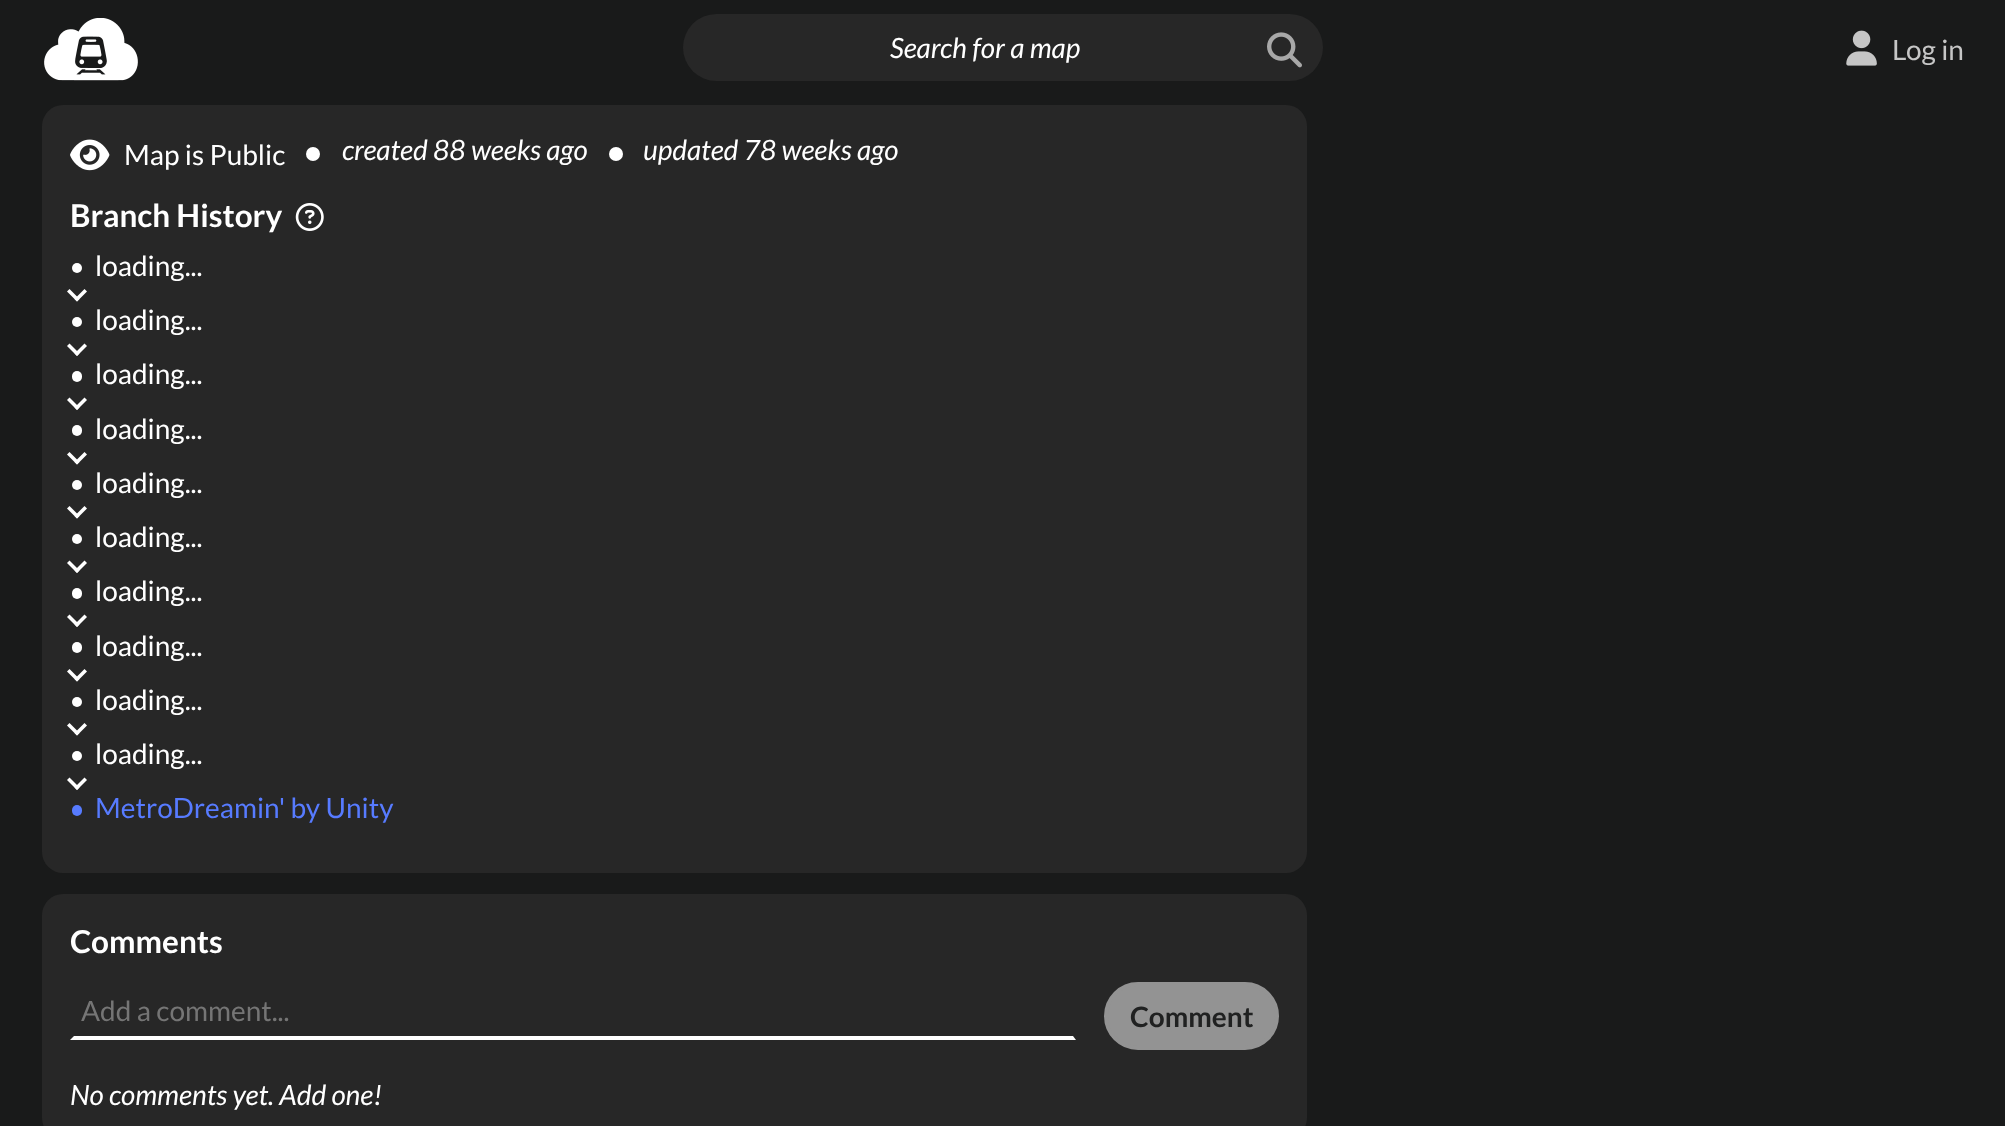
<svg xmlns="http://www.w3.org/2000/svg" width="2005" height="1126">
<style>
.a{font:italic 28px Lato;fill:#fff}
.b{font:28px Lato;fill:#c6c6c6}
.c{font:28px Lato;fill:#fff}
.d{font:bold 31.5px Lato;fill:#fff}
.e{font:28px Lato;fill:#577bff}
.f{font:28px Lato;fill:#757575}
.g{font:bold 28px Lato;fill:#202121}
</style>
<rect width="100%" height="100%" fill="#191a1a"/>
<image href="1.png" x="44" y="18" width="94" height="63"/>
<rect fill="#272727" x="683" y="14" width="640" height="67" rx="33.5"/>
<image href="2.png" x="1267" y="32" width="35" height="36"/>
<image href="3.png" x="1846" y="30" width="31" height="36"/>
<rect fill="#272727" x="42" y="105" width="1265" height="768" rx="21"/>
<image href="4.png" x="70" y="139" width="40" height="32"/>
<circle fill="#fff" cx="313" cy="154" r="7"/>
<circle fill="#fff" cx="616" cy="154" r="7"/>
<image href="5.png" x="295" y="203" width="29" height="28"/>
<circle fill="#fff" cx="77" cy="268" r="5"/>
<path fill="#fff" d="M84.5 289l2.5 2.5l-10 10l-2.5-2.5z"/>
<path fill="#fff" d="M69.5 289l10 10l-2.5 2.5l-10-10z"/>
<circle fill="#fff" cx="77" cy="322" r="5"/>
<path fill="#fff" d="M84.5 343.5l2.5 2.5l-10 10l-2.5-2.5z"/>
<path fill="#fff" d="M69.5 343.5l10 10l-2.5 2.5l-10-10z"/>
<rect fill="#fff" x="72" y="371" width="10" height="11" rx="5"/>
<path fill="#fff" d="M84.5 397.5l2.5 2.5l-10 10l-2.5-2.5z"/>
<path fill="#fff" d="M69.5 397.5l10 10l-2.5 2.5l-10-10z"/>
<rect fill="#fff" x="72" y="425" width="10" height="11" rx="5"/>
<path fill="#fff" d="M84.5 452l2.5 2.5l-10 10l-2.5-2.5z"/>
<path fill="#fff" d="M69.5 452l10 10l-2.5 2.5l-10-10z"/>
<circle fill="#fff" cx="77" cy="485" r="5"/>
<path fill="#fff" d="M84.5 506l2.5 2.5l-10 10l-2.5-2.5z"/>
<path fill="#fff" d="M69.5 506l10 10l-2.5 2.5l-10-10z"/>
<circle fill="#fff" cx="77" cy="539" r="5"/>
<path fill="#fff" d="M84.5 560.5l2.5 2.5l-10 10l-2.5-2.5z"/>
<path fill="#fff" d="M69.5 560.5l10 10l-2.5 2.5l-10-10z"/>
<rect fill="#fff" x="72" y="588" width="10" height="11" rx="5"/>
<path fill="#fff" d="M84.5 614.5l2.5 2.5l-10 10l-2.5-2.5z"/>
<path fill="#fff" d="M69.5 614.5l10 10l-2.5 2.5l-10-10z"/>
<rect fill="#fff" x="72" y="642" width="10" height="11" rx="5"/>
<path fill="#fff" d="M84.5 669l2.5 2.5l-10 10l-2.5-2.5z"/>
<path fill="#fff" d="M69.5 669l10 10l-2.5 2.5l-10-10z"/>
<circle fill="#fff" cx="77" cy="702" r="5"/>
<path fill="#fff" d="M84.5 723l2.5 2.5l-10 10l-2.5-2.5z"/>
<path fill="#fff" d="M69.5 723l10 10l-2.5 2.5l-10-10z"/>
<circle fill="#fff" cx="77" cy="756" r="5"/>
<path fill="#fff" d="M84.5 777.5l2.5 2.5l-10 10l-2.5-2.5z"/>
<path fill="#fff" d="M69.5 777.5l10 10l-2.5 2.5l-10-10z"/>
<rect fill="#577bff" x="72" y="805" width="10" height="11" rx="5"/>
<rect fill="#272727" x="42" y="894" width="1265" height="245" rx="21"/>
<path fill="#fff" d="M1076 1040h-1006l4-4h999z"/>
<rect fill="#939393" stroke="#939393" stroke-width="4" x="1106" y="984" width="171" height="64" rx="32"/>
<text class="a" x="890" y="58">Search for a map</text>
<text class="b" x="1892" y="60">Log in</text>
<text class="c" x="124" y="165">Map is Public</text>
<text class="a" x="342" y="160">created 88 weeks ago</text>
<text class="a" x="643" y="160">updated 78 weeks ago</text>
<text class="d" x="70" y="227">Branch History</text>
<text class="c" x="95" y="276">loading...</text>
<text class="c" x="95" y="330">loading...</text>
<text class="c" x="95" y="384">loading...</text>
<text class="c" x="95" y="439">loading...</text>
<text class="c" x="95" y="493">loading...</text>
<text class="c" x="95" y="547">loading...</text>
<text class="c" x="95" y="601">loading...</text>
<text class="c" x="95" y="656">loading...</text>
<text class="c" x="95" y="710">loading...</text>
<text class="c" x="95" y="764">loading...</text>
<text class="e" x="95" y="818">MetroDreamin' by Unity</text>
<text class="d" x="70" y="953">Comments</text>
<text class="f" x="81" y="1021">Add a comment...</text>
<text class="g" x="1130" y="1027">Comment</text>
<text class="a" x="70" y="1105">No comments yet. Add one!</text>
</svg>
